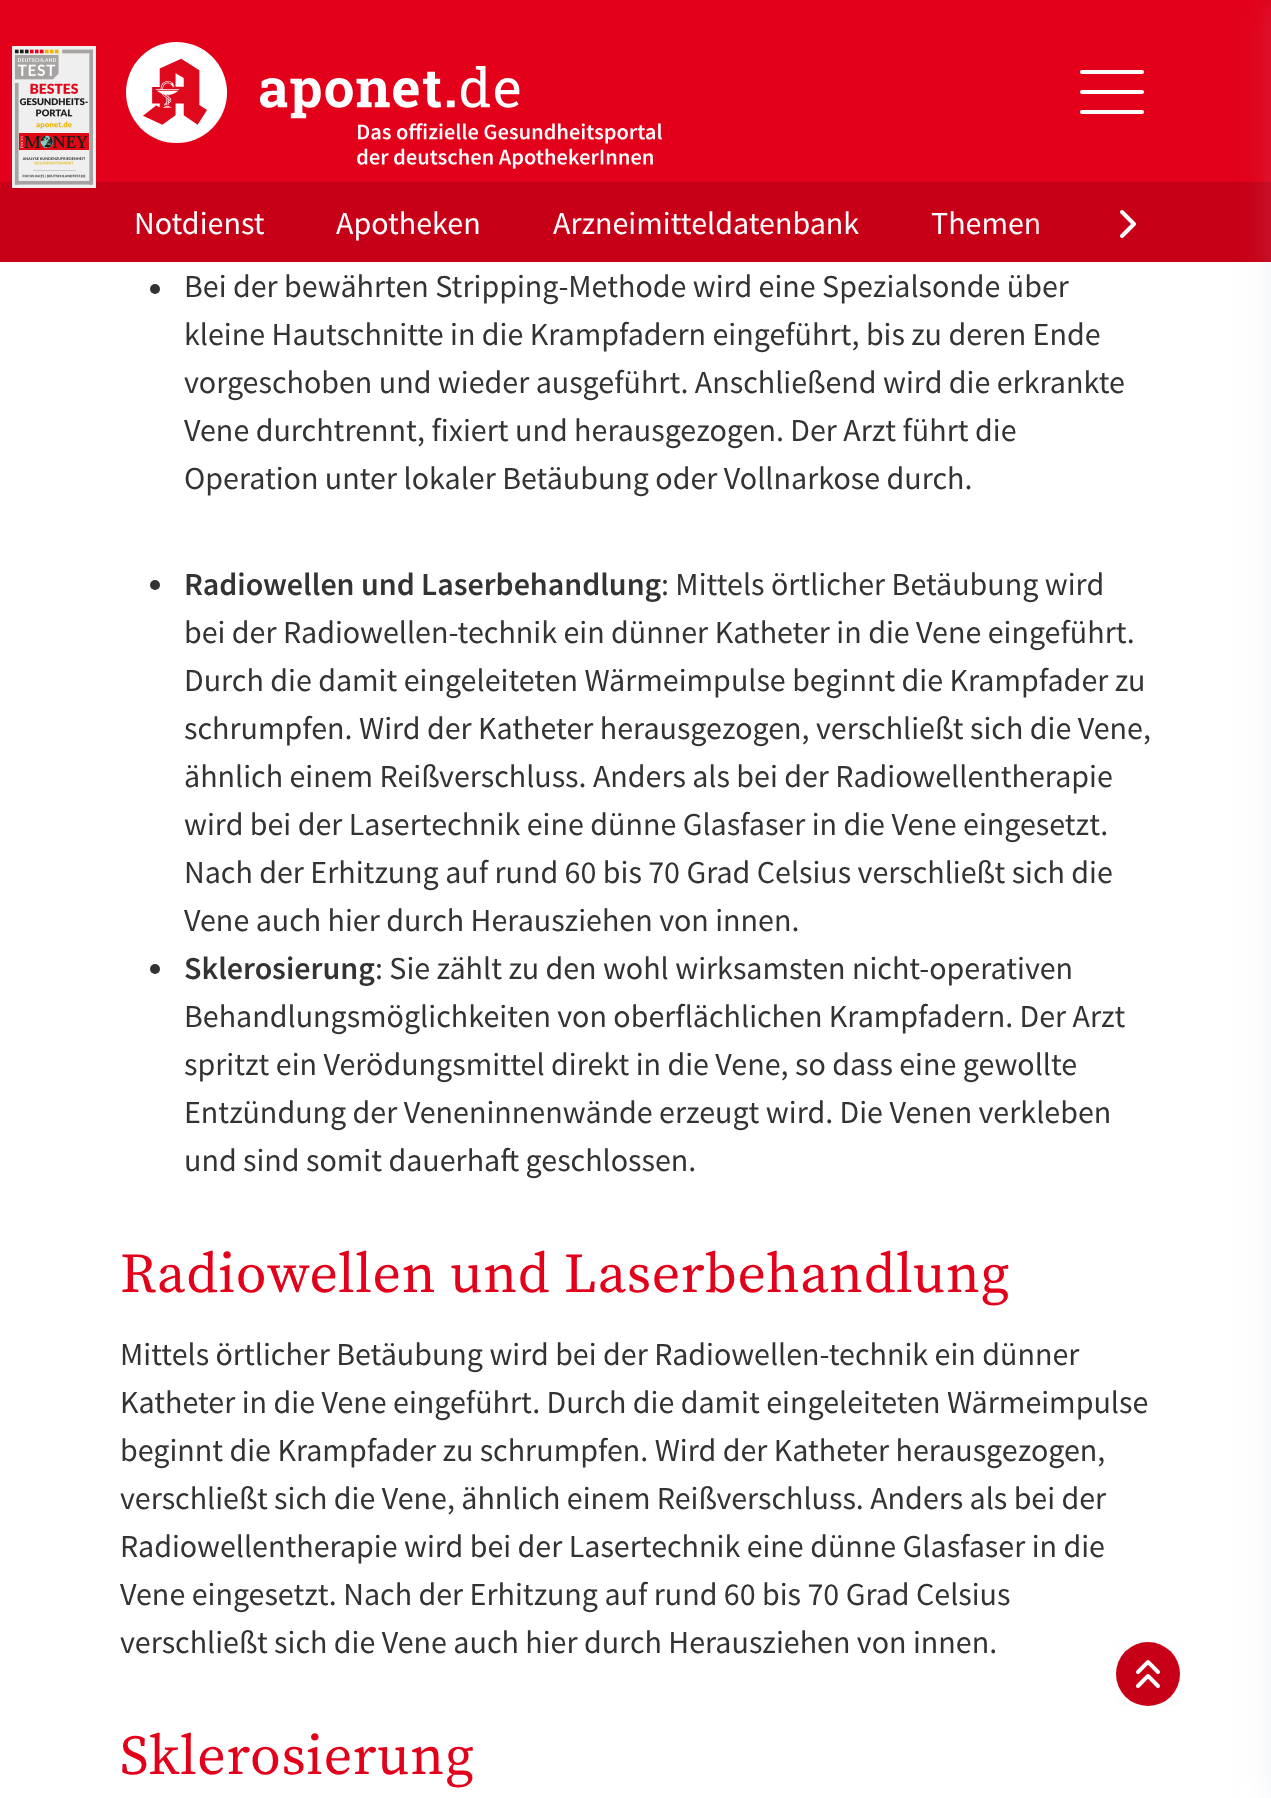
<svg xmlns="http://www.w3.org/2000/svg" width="1271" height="1798">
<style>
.a{font:32px Source Sans Pro;fill:#fff}
.b{font:32px Source Sans Pro;fill:#333}
.c{font:600 32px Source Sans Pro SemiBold;fill:#333}
.d{font:56px Source Serif Pro;letter-spacing:0.6px;fill:#e2001a}
</style>
<defs>
<linearGradient id="g1" gradientUnits="userSpaceOnUse" x1="1024" y1="222" x2="1104" y2="222"><stop offset="0" stop-color="#c70017" stop-opacity="0"/><stop offset="1" stop-color="#c70017"/></linearGradient>
</defs>
<rect width="100%" height="100%" fill="#fff"/>
<path fill="#e2001a" d="M0 0h1271v182H0z"/>
<path fill="#c70017" d="M0 182h1271v80H0z"/>
<image href="1.png" x="12" y="46" width="84" height="142"/>
<image href="2.png" x="126" y="42" width="536" height="127"/>
<rect fill="#fff" x="1080" y="70" width="64" height="4" rx="2"/>
<rect fill="#fff" x="1080" y="90" width="64" height="4" rx="2"/>
<rect fill="#fff" x="1080" y="110" width="64" height="4" rx="2"/>
<path fill="#abb7ca33" filter="blur(16px)" d="M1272 4h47v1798H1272z"/>
<path fill="none" stroke="#fff" stroke-width="4" stroke-linecap="round" stroke-linejoin="round" d="M1122 236l12-12l-12-12"/>
<circle fill="#333" cx="155" cy="289" r="5"/>
<circle fill="#333" cx="155" cy="585" r="5"/>
<circle fill="#333" cx="155" cy="969" r="5"/>
<image href="3.png" x="1116" y="1642" width="64" height="64"/>
<text class="a" x="134" y="234">Notdienst</text>
<text class="a" x="336" y="234">Apotheken</text>
<text class="a" x="553" y="234">Arzneimitteldatenbank</text>
<text class="a" x="931" y="234">Themen</text>
<path fill="url(#g1)" d="M1027 218h13v16H1027z"/>
<text class="b" x="184" y="297">Bei der bewährten Stripping-Methode wird eine Spezialsonde über</text>
<text class="b" x="184" y="345">kleine Hautschnitte in die Krampfadern eingeführt, bis zu deren Ende</text>
<text class="b" x="184" y="393">vorgeschoben und wieder ausgeführt. Anschließend wird die erkrankte</text>
<text class="b" x="184" y="441">Vene durchtrennt, fixiert und herausgezogen. Der Arzt führt die</text>
<text class="b" x="184" y="489">Operation unter lokaler Betäubung oder Vollnarkose durch.</text>
<text class="c" x="184" y="595">Radiowellen und Laserbehandlung</text>
<text class="b" x="661" y="595">: Mittels örtlicher Betäubung wird</text>
<text class="b" x="184" y="643">bei der Radiowellen-technik ein dünner Katheter in die Vene eingeführt.</text>
<text class="b" x="184" y="691">Durch die damit eingeleiteten Wärmeimpulse beginnt die Krampfader zu</text>
<text class="b" x="184" y="739">schrumpfen. Wird der Katheter herausgezogen, verschließt sich die Vene,</text>
<text class="b" x="184" y="787">ähnlich einem Reißverschluss. Anders als bei der Radiowellentherapie</text>
<text class="b" x="184" y="835">wird bei der Lasertechnik eine dünne Glasfaser in die Vene eingesetzt.</text>
<text class="b" x="184" y="883">Nach der Erhitzung auf rund 60 bis 70 Grad Celsius verschließt sich die</text>
<text class="b" x="184" y="931">Vene auch hier durch Herausziehen von innen.</text>
<text class="c" x="184" y="979">Sklerosierung</text>
<text class="b" x="375" y="979">: Sie zählt zu den wohl wirksamsten nicht-operativen</text>
<text class="b" x="184" y="1027">Behandlungsmöglichkeiten von oberflächlichen Krampfadern. Der Arzt</text>
<text class="b" x="184" y="1075">spritzt ein Verödungsmittel direkt in die Vene, so dass eine gewollte</text>
<text class="b" x="184" y="1123">Entzündung der Veneninnenwände erzeugt wird. Die Venen verkleben</text>
<text class="b" x="184" y="1171">und sind somit dauerhaft geschlossen.</text>
<text class="d" x="120" y="1292">Radiowellen und Laserbehandlung</text>
<text class="b" x="120" y="1365">Mittels örtlicher Betäubung wird bei der Radiowellen-technik ein dünner</text>
<text class="b" x="120" y="1413">Katheter in die Vene eingeführt. Durch die damit eingeleiteten Wärmeimpulse</text>
<text class="b" x="120" y="1461">beginnt die Krampfader zu schrumpfen. Wird der Katheter herausgezogen,</text>
<text class="b" x="120" y="1509">verschließt sich die Vene, ähnlich einem Reißverschluss. Anders als bei der</text>
<text class="b" x="120" y="1557">Radiowellentherapie wird bei der Lasertechnik eine dünne Glasfaser in die</text>
<text class="b" x="120" y="1605">Vene eingesetzt. Nach der Erhitzung auf rund 60 bis 70 Grad Celsius</text>
<text class="b" x="120" y="1653">verschließt sich die Vene auch hier durch Herausziehen von innen.</text>
<text class="d" x="120" y="1774">Sklerosierung</text>
</svg>
